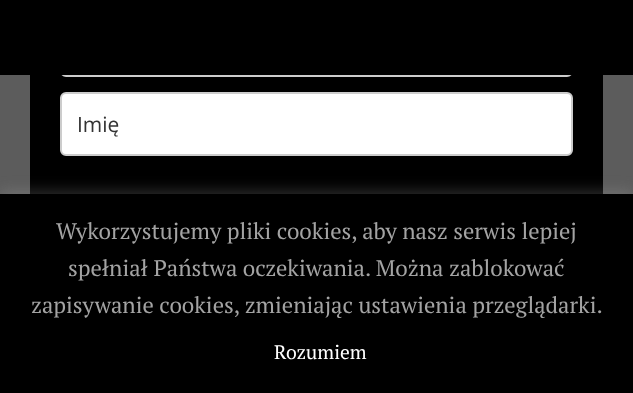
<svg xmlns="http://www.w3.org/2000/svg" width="633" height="393">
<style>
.a{font:21px Open Sans;fill:#333}
.b{font:22.5px PT Serif;fill:#a3a3a3}
.c{font:19.5px PT Serif;fill:#fff}
</style>
<rect width="100%" height="100%" fill="#5c5c5c"/>
<path fill="#000" d="M30 75h573v119H30z"/>
<rect fill="none" stroke="#ccc" stroke-width="2" x="61" y="13" width="511" height="63" rx="5"/>
<path fill="#000" d="M0 0h633v75H0z"/>
<rect fill="#fff" stroke="#ccc" stroke-width="2" x="61" y="93" width="511" height="62" rx="5"/>
<path fill="#acabab4d" filter="blur(7.5px)" d="M0 192h633v200H0z"/>
<path fill="#000" d="M0 194h633v199H0z"/>
<text class="a" x="77" y="132">Imię</text>
<text class="b" x="56" y="239">Wykorzystujemy pliki cookies, aby nasz serwis lepiej</text>
<text class="b" x="68" y="276">spełniał Państwa oczekiwania. Można zablokować</text>
<text class="b" x="31" y="313">zapisywanie cookies, zmieniając ustawienia przeglądarki.</text>
<text class="c" x="274" y="359">Rozumiem</text>
</svg>
